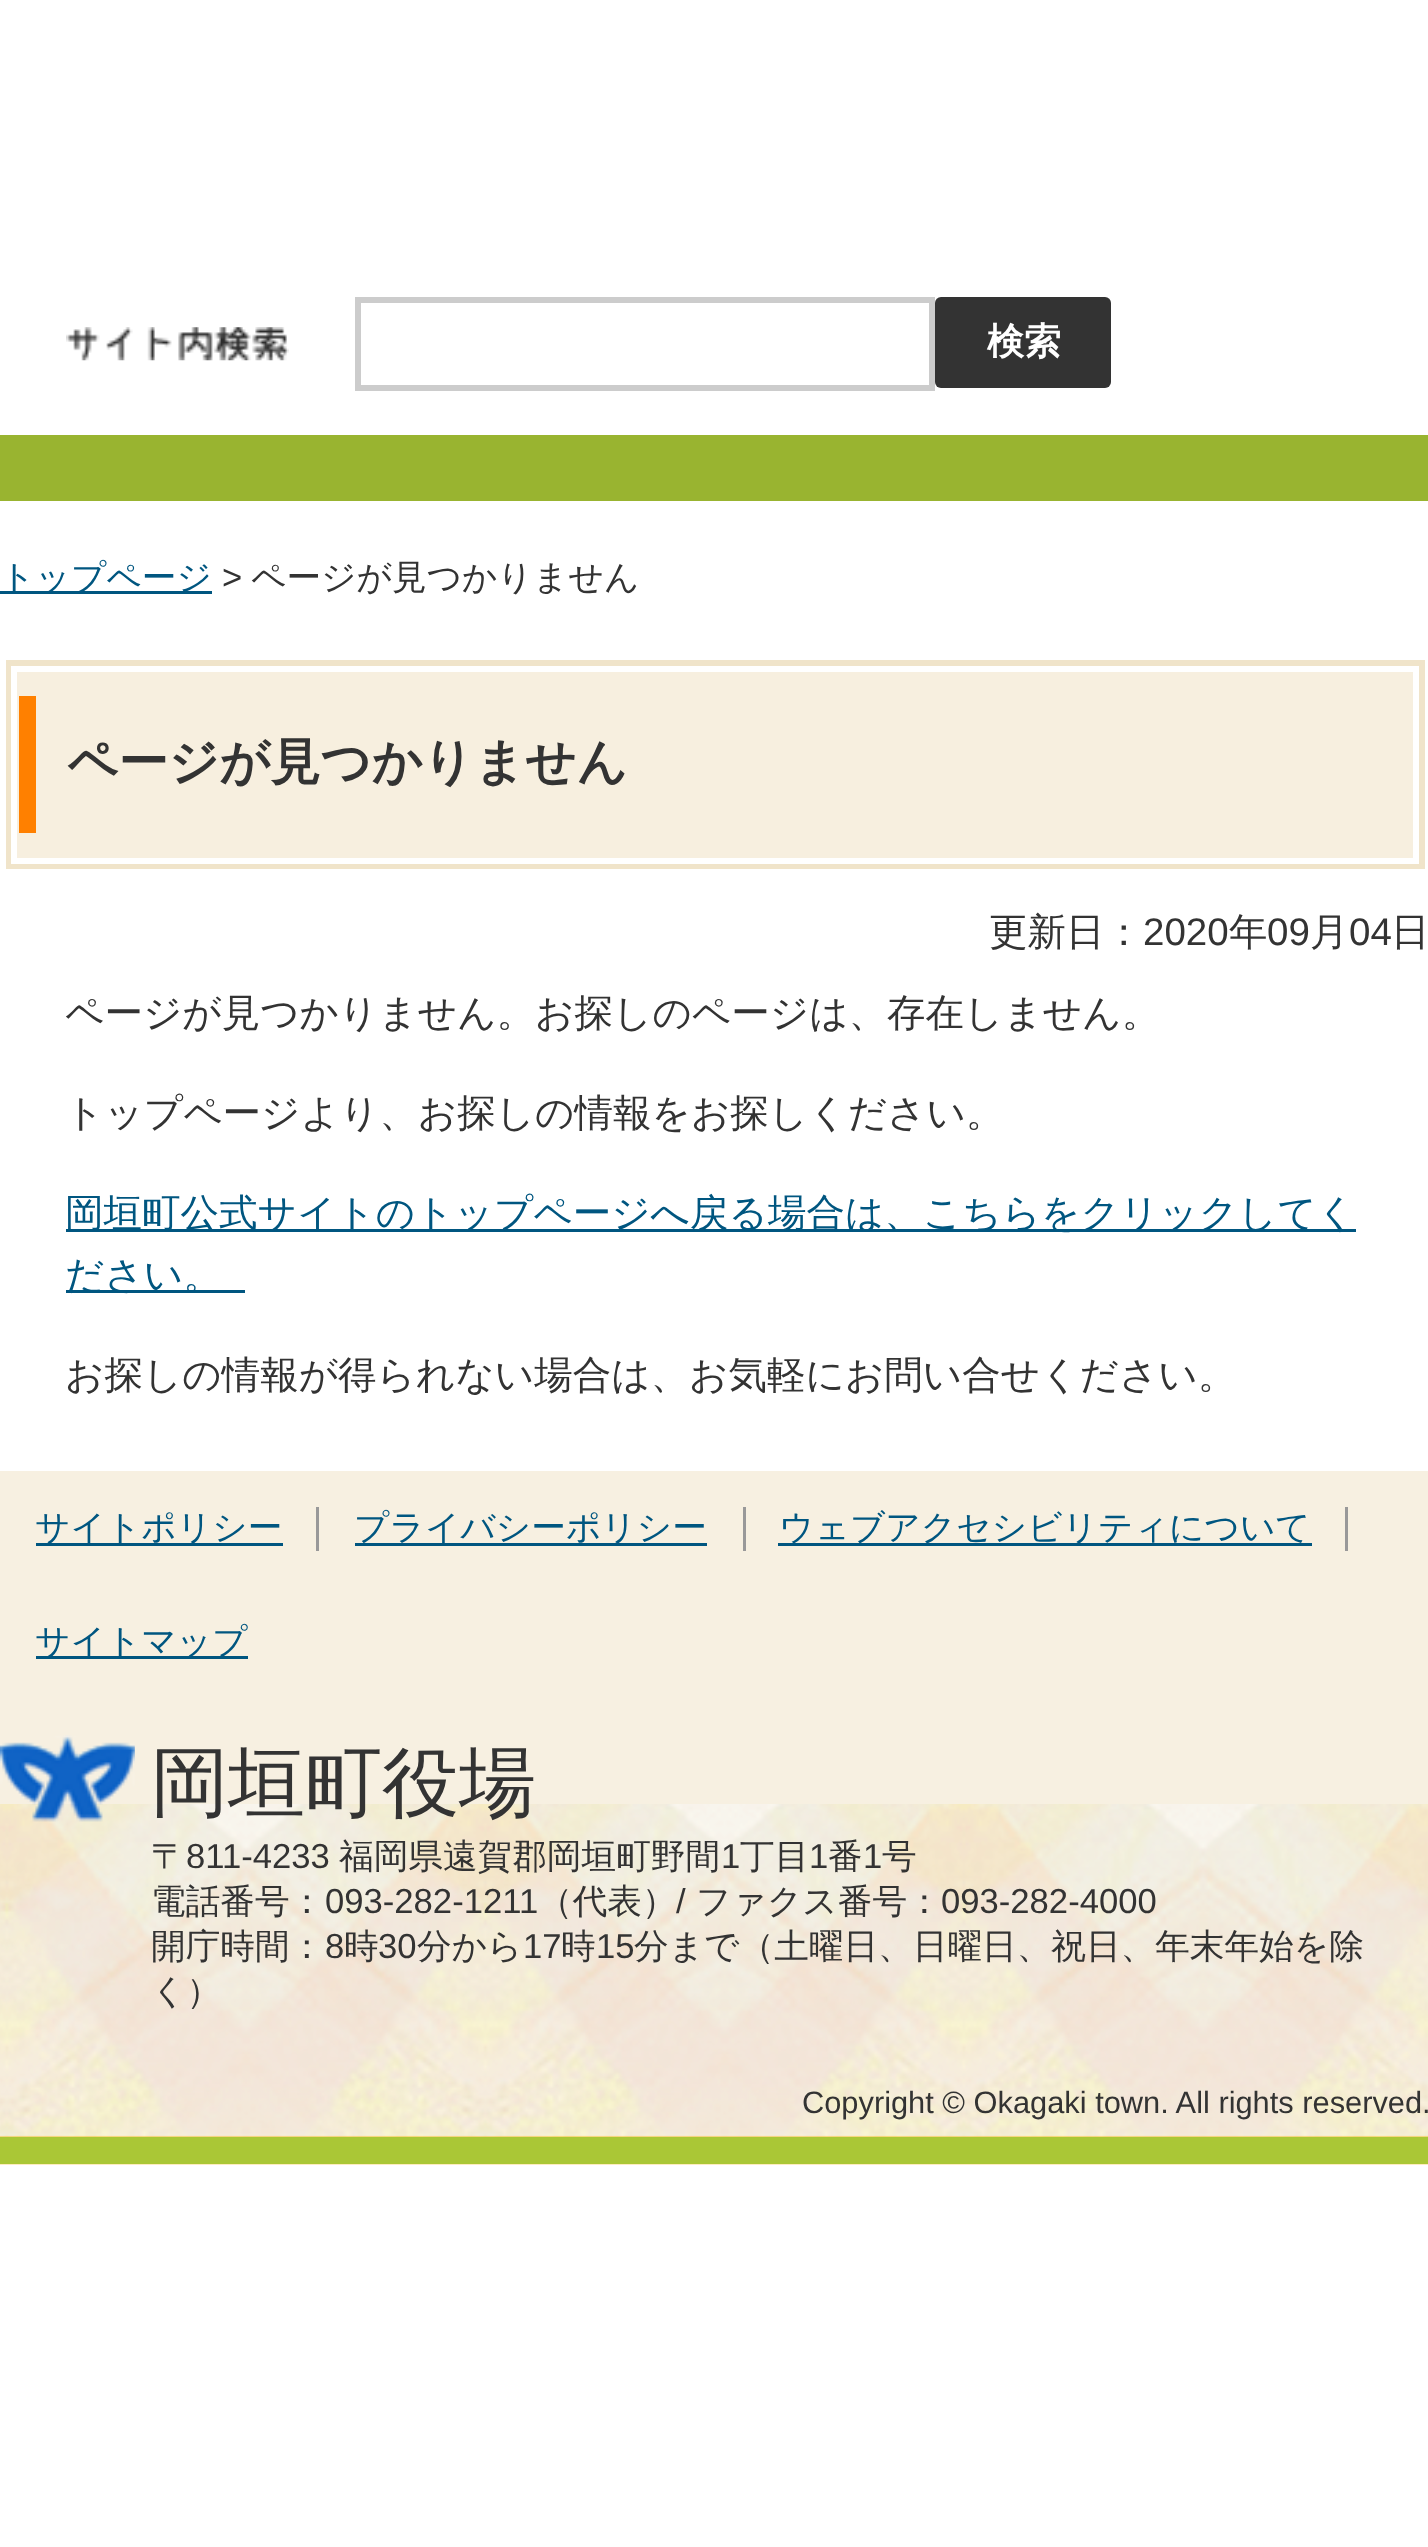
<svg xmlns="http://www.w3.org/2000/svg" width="1428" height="2547">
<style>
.a{font:bold 37px WenQuanYi Zen Hei;fill:#fff}
.b{font:500 34.65px WenQuanYi Zen Hei;fill:#005680}
.c{font:34.65px Liberation Sans;fill:#333}
.d{font:500 34.65px WenQuanYi Zen Hei;fill:#333}
.e{font:bold 50px WenQuanYi Zen Hei;fill:#333}
.f{font:500 38.5px WenQuanYi Zen Hei;fill:#333}
.g{font:38.5px Liberation Sans;fill:#333}
.h{font:500 38.5px WenQuanYi Zen Hei;fill:#005680}
.i{font:500 77px WenQuanYi Zen Hei;fill:#333}
.j{font:30.8px Liberation Sans;fill:#333}
</style>
<rect width="100%" height="100%" fill="#fff"/>
<image href="1.png" x="66" y="327" width="223" height="34"/>
<path fill="none" stroke="#ccc" stroke-width="6" d="M358 300h574v88H358z"/>
<rect fill="#333" x="935" y="297" width="176" height="91" rx="6"/>
<path fill="#99b430" d="M0 435h1428v66H0z"/>
<path fill="#005680" d="M0 591h212v3H0z"/>
<path fill="none" stroke="#f0e4ca" stroke-width="6" d="M9 663h1413v203H9z"/>
<path fill="#f7efdf" stroke="#fff" stroke-width="6" d="M14 669h1402v192H14z"/>
<path fill="#ff8000" d="M19 696h17v137H19z"/>
<path fill="#005680" d="M66 1229h1290v3H66z"/>
<path fill="#005680" d="M66 1290h179v3H66z"/>
<path fill="#f7f0e1" d="M0 1471h1428v333H0z"/>
<image href="2.png" x="0" y="1804" width="1428" height="361"/>
<path fill="#999" d="M316 1507h3v44H316z"/>
<path fill="#005680" d="M36 1543h247v3H36z"/>
<path fill="#999" d="M743 1507h3v44H743z"/>
<path fill="#005680" d="M355 1543h352v3H355z"/>
<path fill="#999" d="M1345 1507h3v44H1345z"/>
<path fill="#005680" d="M778 1543h534v3H778z"/>
<path fill="#005680" d="M36 1656h212v3H36z"/>
<path fill="#aac736" d="M0 2137h1428v27H0z"/>
<image href="3.png" x="0" y="1735" width="135" height="87"/>
<text class="a" x="987" y="354">検索</text>
<text class="b" x="0" y="589">トップページ</text>
<text class="c" x="222" y="589">&gt;</text>
<text class="d" x="251" y="589">ページが見つかりません</text>
<text class="e" x="67" y="779">ページが見つかりません</text>
<text class="f" x="989" y="945">更新日：</text>
<text class="g" x="1143" y="945">2020</text>
<text class="f" x="1229" y="945">年</text>
<text class="g" x="1267" y="945">09</text>
<text class="f" x="1310" y="945">月</text>
<text class="g" x="1349" y="945">04</text>
<text class="f" x="1391" y="945">日</text>
<text class="f" x="65" y="1026">ページが見つかりません。お探しのページは、存在しません。</text>
<text class="f" x="65" y="1126">トップページより、お探しの情報をお探しください。</text>
<text class="h" x="65" y="1226">岡垣町公式サイトのトップページへ戻る場合は、こちらをクリックしてく</text>
<text class="h" x="65" y="1288">ださい。</text>
<text class="f" x="65" y="1388">お探しの情報が得られない場合は、お気軽にお問い合せください。</text>
<text class="b" x="35" y="1539">サイトポリシー</text>
<text class="b" x="354" y="1539">プライバシーポリシー</text>
<text class="b" x="779" y="1539">ウェブアクセシビリティについて</text>
<text class="b" x="35" y="1653">サイトマップ</text>
<text class="i" x="151" y="1809">岡垣町役場</text>
<text class="d" x="151" y="1868">〒</text>
<text class="c" x="186" y="1868">811-4233</text>
<text class="d" x="339" y="1868">福岡県遠賀郡岡垣町野間</text>
<text class="c" x="721" y="1868">1</text>
<text class="d" x="740" y="1868">丁目</text>
<text class="c" x="809" y="1868">1</text>
<text class="d" x="828" y="1868">番</text>
<text class="c" x="863" y="1868">1</text>
<text class="d" x="882" y="1868">号</text>
<text class="d" x="151" y="1913">電話番号：</text>
<text class="c" x="325" y="1913">093-282-1211</text>
<text class="d" x="538" y="1913">（代表）</text>
<text class="c" x="676" y="1913">/</text>
<text class="d" x="696" y="1913">ファクス番号：</text>
<text class="c" x="941" y="1913">093-282-4000</text>
<text class="d" x="151" y="1958">開庁時間：</text>
<text class="c" x="325" y="1958">8</text>
<text class="d" x="344" y="1958">時</text>
<text class="c" x="378" y="1958">30</text>
<text class="d" x="417" y="1958">分から</text>
<text class="c" x="523" y="1958">17</text>
<text class="d" x="561" y="1958">時</text>
<text class="c" x="596" y="1958">15</text>
<text class="d" x="634" y="1958">分まで（土曜日、日曜日、祝日、年末年始を除</text>
<text class="d" x="151" y="2003">く）</text>
<text class="j" x="802" y="2113">Copyright © Okagaki town. All rights reserved.</text>
</svg>
